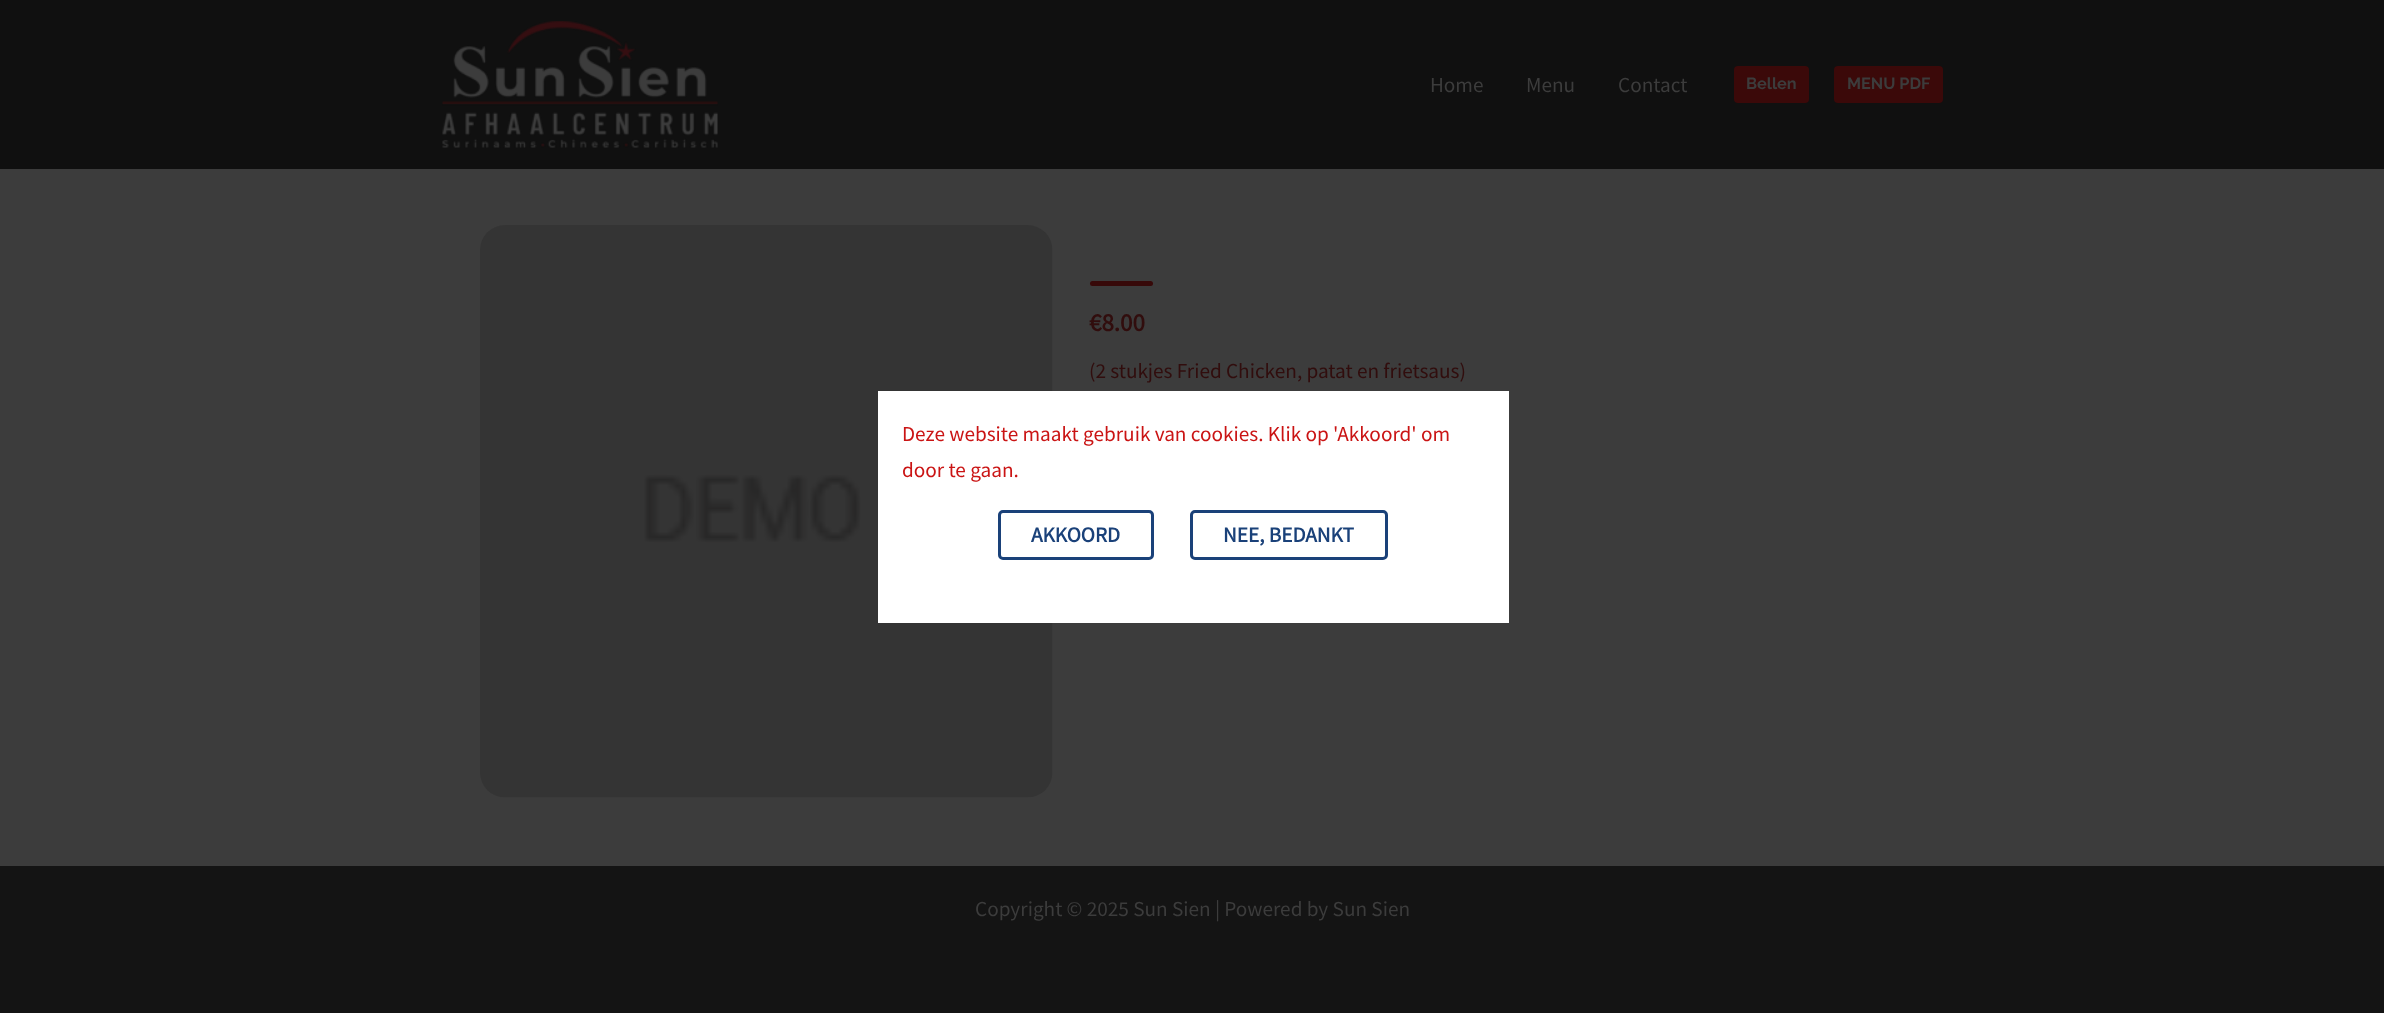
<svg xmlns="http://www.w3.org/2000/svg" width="2384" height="1013">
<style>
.a{font:21.25px Source Sans Pro;fill:#3c3c3c}
.b{font:100 16.25px Raleway;fill:#3c3c3c}
.c{font:bold 25px Source Sans Pro;fill:#310d0d}
.d{font:21.25px Source Sans Pro;fill:#310d0d}
.e{font:21.25px Source Sans Pro;fill:#ca1414}
.f{font:bold 21.25px Source Sans Pro;fill:#1a4179}
</style>
<rect width="100%" height="100%" fill="#3c3c3c"/>
<path fill="#101010" d="M0 0h2384v169H0z"/>
<image href="1.png" x="442" y="21" width="276" height="127"/>
<rect fill="#3b0909" x="1734" y="66" width="75" height="37" rx="4"/>
<rect fill="#3b0909" x="1834" y="66" width="109" height="37" rx="4"/>
<image href="2.png" x="480" y="225" width="573" height="573"/>
<rect fill="#370909" x="1090" y="281" width="63" height="5" rx="2.5"/>
<path fill="#141414" d="M0 866h2384v147H0z"/>
<path fill="#fff" d="M878 391h631v232H878z"/>
<rect fill="none" stroke="#1a4179" stroke-width="3" x="999.5" y="511.5" width="153" height="47" rx="3.5"/>
<rect fill="none" stroke="#1a4179" stroke-width="3" x="1191.5" y="511.5" width="195" height="47" rx="3.5"/>
<text class="a" x="1430" y="92">Home</text>
<text class="a" x="1526" y="92">Menu</text>
<text class="a" x="1618" y="92">Contact</text>
<text class="b" x="1746" y="89">Bellen</text>
<text class="b" x="1847" y="89">MENU PDF</text>
<text class="c" x="1089" y="331">€8.00</text>
<text class="d" x="1089" y="378">(2 stukjes Fried Chicken, patat en frietsaus)</text>
<text class="a" x="975" y="916">Copyright © 2025 Sun Sien | Powered by Sun Sien</text>
<text class="e" x="902" y="441">Deze website maakt gebruik van cookies. Klik op 'Akkoord' om</text>
<text class="e" x="902" y="477">door te gaan.</text>
<text class="f" x="1031" y="542">AKKOORD</text>
<text class="f" x="1223" y="542">NEE, BEDANKT</text>
</svg>
